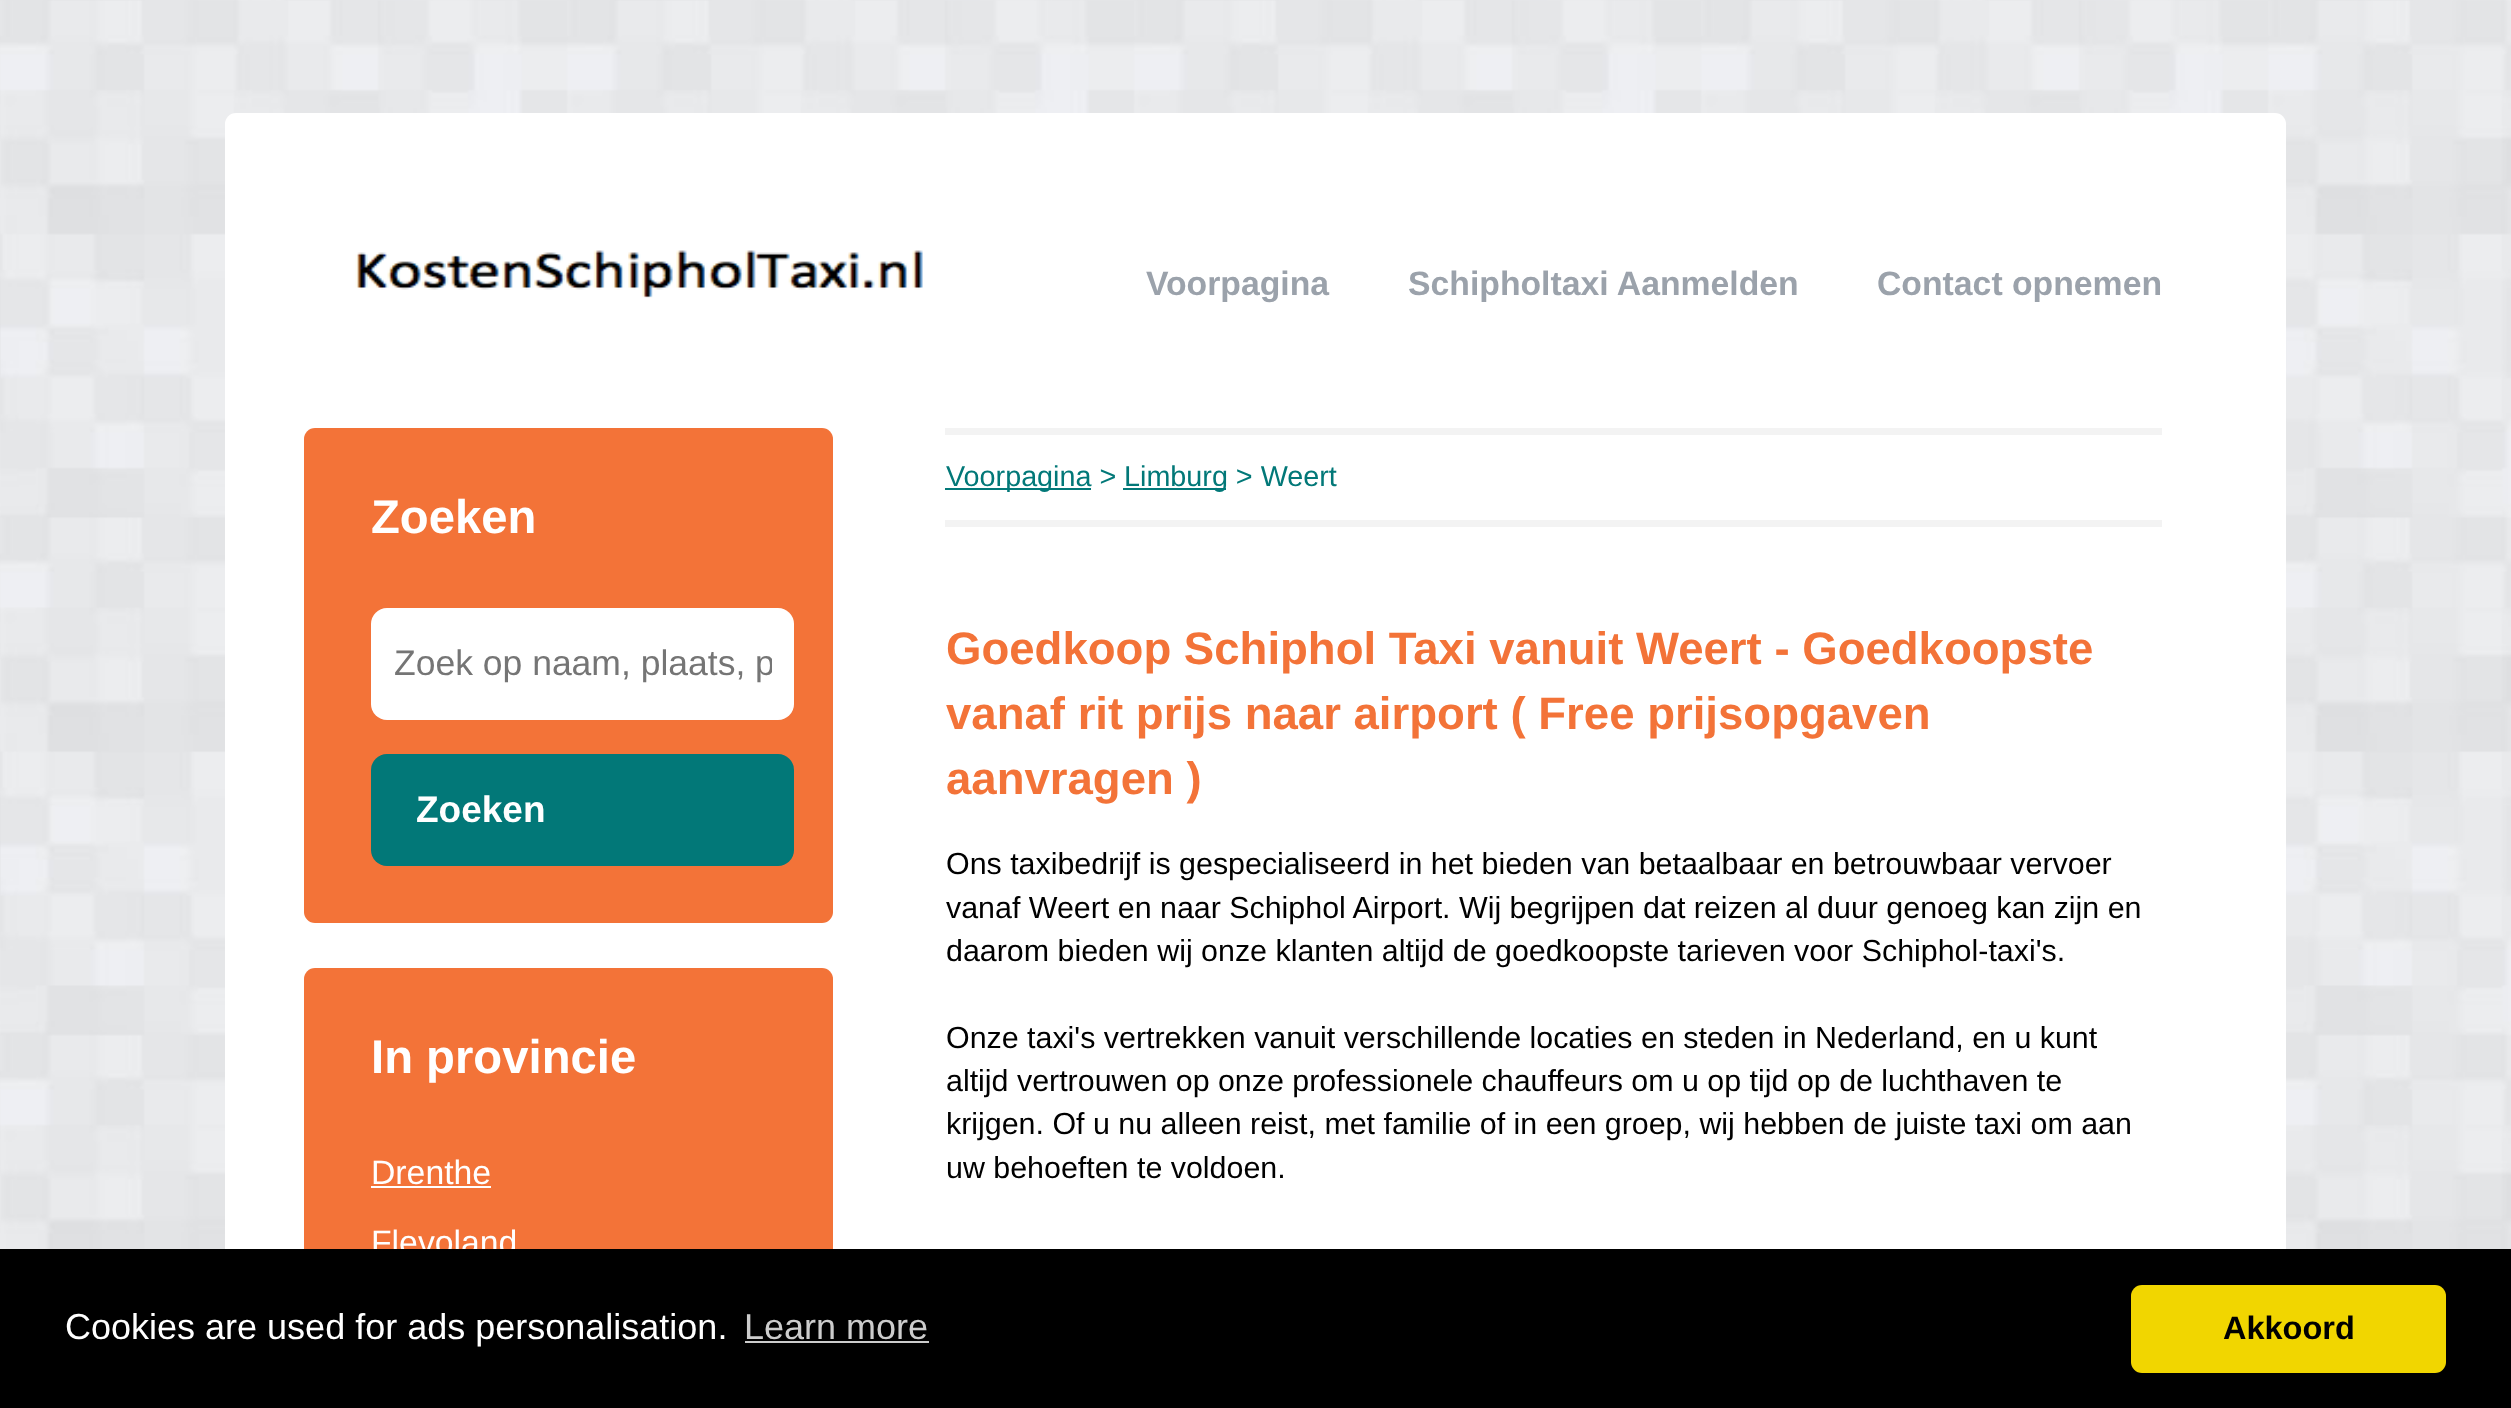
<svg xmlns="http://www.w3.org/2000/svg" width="2511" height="1408">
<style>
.a{font:bold 33.75px Liberation Sans;fill:#9ba2ab}
.b{font:bold 47.25px Liberation Sans;fill:#fff}
.c{font:35.5px Liberation Sans;fill:#757575}
.d{font:bold 37px Liberation Sans;fill:#fff}
.e{font:33.75px Liberation Sans;fill:#fff}
.f{font:28.75px Liberation Sans;fill:#027878}
.g{font:bold 45.55px Liberation Sans;fill:#f37338}
.h{font:30.4px Liberation Sans;fill:#000}
.i{font:36px Liberation Sans;fill:#fff}
.j{font:36px Liberation Sans;fill:#ccc}
.k{font:bold 32.5px Liberation Sans;fill:#000}
</style>
<defs>
<clipPath id="clip1"><path d="M394 644h378v40H394z"/></clipPath>
</defs>
<rect width="100%" height="100%" fill="#fff"/>
<image href="1.png" x="0" y="0" width="2511" height="1249"/>
<rect fill="#fff" x="225" y="113" width="2061" height="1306" rx="11"/>
<image href="2.png" x="355" y="250" width="568" height="48"/>
<rect fill="#f37338" x="304" y="428" width="529" height="495" rx="11"/>
<rect fill="#fff" x="371" y="608" width="423" height="112" rx="16"/>
<rect fill="#027878" x="371" y="754" width="423" height="112" rx="16"/>
<rect fill="#f37338" x="304" y="968" width="529" height="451" rx="11"/>
<path fill="#fff" d="M371 1186h120v2H371z"/>
<path fill="#f3f3f3" d="M945 428h1217v7H945z"/>
<path fill="#f3f3f3" d="M945 520h1217v7H945z"/>
<path fill="#027878" d="M945 488h146v2H945z"/>
<path fill="#027878" d="M1123 488h103v2H1123z"/>
<text class="a" x="1146" y="295">Voorpagina</text>
<text class="a" x="1408" y="295">Schipholtaxi Aanmelden</text>
<text class="a" x="1877" y="295">Contact opnemen</text>
<text class="b" x="371" y="533">Zoeken</text>
<g clip-path="url(#clip1)">
<text class="c" x="394" y="675">Zoek op naam, plaats, p</text>
</g>
<text class="d" x="416" y="822">Zoeken</text>
<text class="b" x="371" y="1073">In provincie</text>
<text class="e" x="371" y="1184">Drenthe</text>
<text class="e" x="371" y="1254">Flevoland</text>
<text class="f" x="946" y="486">Voorpagina &gt;</text>
<text class="f" x="1124" y="486">Limburg &gt; Weert</text>
<text class="g" x="946" y="664">Goedkoop Schiphol Taxi vanuit Weert - Goedkoopste</text>
<text class="g" x="946" y="729">vanaf rit prijs naar airport ( Free prijsopgaven</text>
<text class="g" x="946" y="794">aanvragen )</text>
<text class="h" x="946" y="874">Ons taxibedrijf is gespecialiseerd in het bieden van betaalbaar en betrouwbaar vervoer</text>
<text class="h" x="946" y="918">vanaf Weert en naar Schiphol Airport. Wij begrijpen dat reizen al duur genoeg kan zijn en</text>
<text class="h" x="946" y="961">daarom bieden wij onze klanten altijd de goedkoopste tarieven voor Schiphol-taxi's.</text>
<text class="h" x="946" y="1048">Onze taxi's vertrekken vanuit verschillende locaties en steden in Nederland, en u kunt</text>
<text class="h" x="946" y="1091">altijd vertrouwen op onze professionele chauffeurs om u op tijd op de luchthaven te</text>
<text class="h" x="946" y="1134">krijgen. Of u nu alleen reist, met familie of in een groep, wij hebben de juiste taxi om aan</text>
<text class="h" x="946" y="1178">uw behoeften te voldoen.</text>
<path fill="#000" d="M0 1249h2511v159H0z"/>
<text class="i" x="65" y="1339">Cookies are used for ads personalisation.</text>
<text class="j" x="744" y="1339">Learn more</text>
<path fill="#ccc" d="M745 1341h184v2H745z"/>
<rect fill="#f1d600" x="2131" y="1285" width="315" height="88" rx="11"/>
<text class="k" x="2223" y="1339">Akkoord</text>
</svg>
